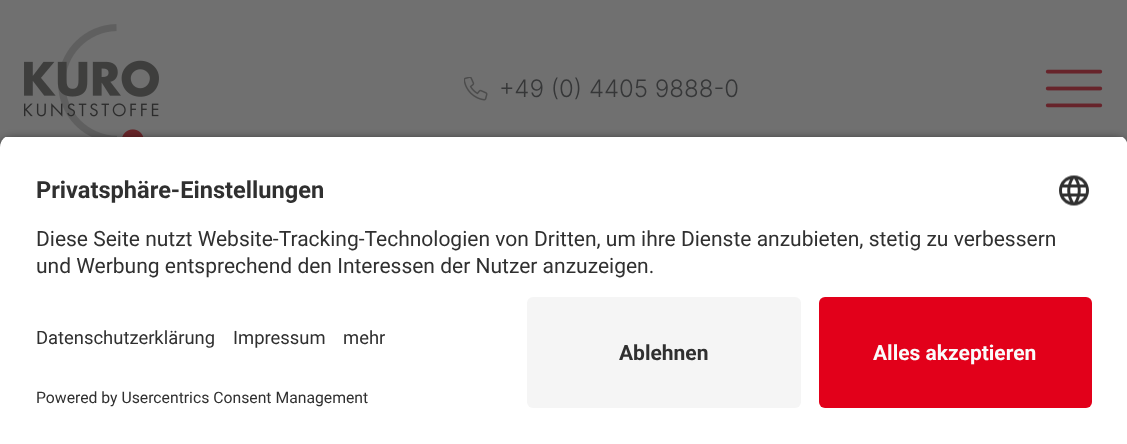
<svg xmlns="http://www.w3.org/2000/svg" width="1127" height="444">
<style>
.a{font:300 24px Inter;fill:#363738}
.b{font:bold 23.6px Roboto;fill:#303030}
.c{font:21px Roboto;fill:#303030}
.d{font:18.4px Roboto;fill:#303030}
.e{font:15.75px Roboto;fill:#303030}
.f{font:bold 21px Roboto;fill:#303030}
.g{font:bold 21px Roboto;fill:#fafafa}
</style>
<defs>
<clipPath id="clip1"><path d="M12 135h1104c6.5 0 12 5.5 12 12v138h-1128v-138c0-6.5 5.5-12 12-12z"/></clipPath>
</defs>
<rect width="100%" height="100%" fill="#707070"/>
<image href="1.png" x="24" y="24" width="135" height="113"/>
<image href="2.png" x="464" y="77" width="24" height="24"/>
<image href="3.png" x="1045" y="69" width="58" height="39"/>
<rect fill="#000000cc" filter="blur(5px)" y="140" width="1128" height="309" rx="12"/>
<g clip-path="url(#clip1)">
<path fill="#fff" d="M0 137h1127v148H0z"/>
</g>
<image href="4.png" x="1059" y="175" width="30" height="31"/>
<path fill="#fff" d="M0 285h1127v159H0z"/>
<rect fill="#f5f5f5" x="527" y="297" width="274" height="111" rx="6"/>
<rect fill="#e2001a" x="819" y="297" width="273" height="111" rx="6"/>
<text class="a" x="499" y="97">+49 (0) 4405 9888-0</text>
<text class="b" x="36" y="198">Privatsphäre-Einstellungen</text>
<text class="c" x="36" y="246">Diese Seite nutzt Website-Tracking-Technologien von Dritten, um ihre Dienste anzubieten, stetig zu verbessern</text>
<text class="c" x="36" y="273">und Werbung entsprechend den Interessen der Nutzer anzuzeigen.</text>
<text class="d" x="36" y="344">Datenschutzerklärung</text>
<text class="d" x="233" y="344">Impressum</text>
<text class="d" x="343" y="344">mehr</text>
<text class="e" x="36" y="403">Powered by Usercentrics Consent Management</text>
<text class="f" x="619" y="360">Ablehnen</text>
<text class="g" x="873" y="360">Alles akzeptieren</text>
</svg>
